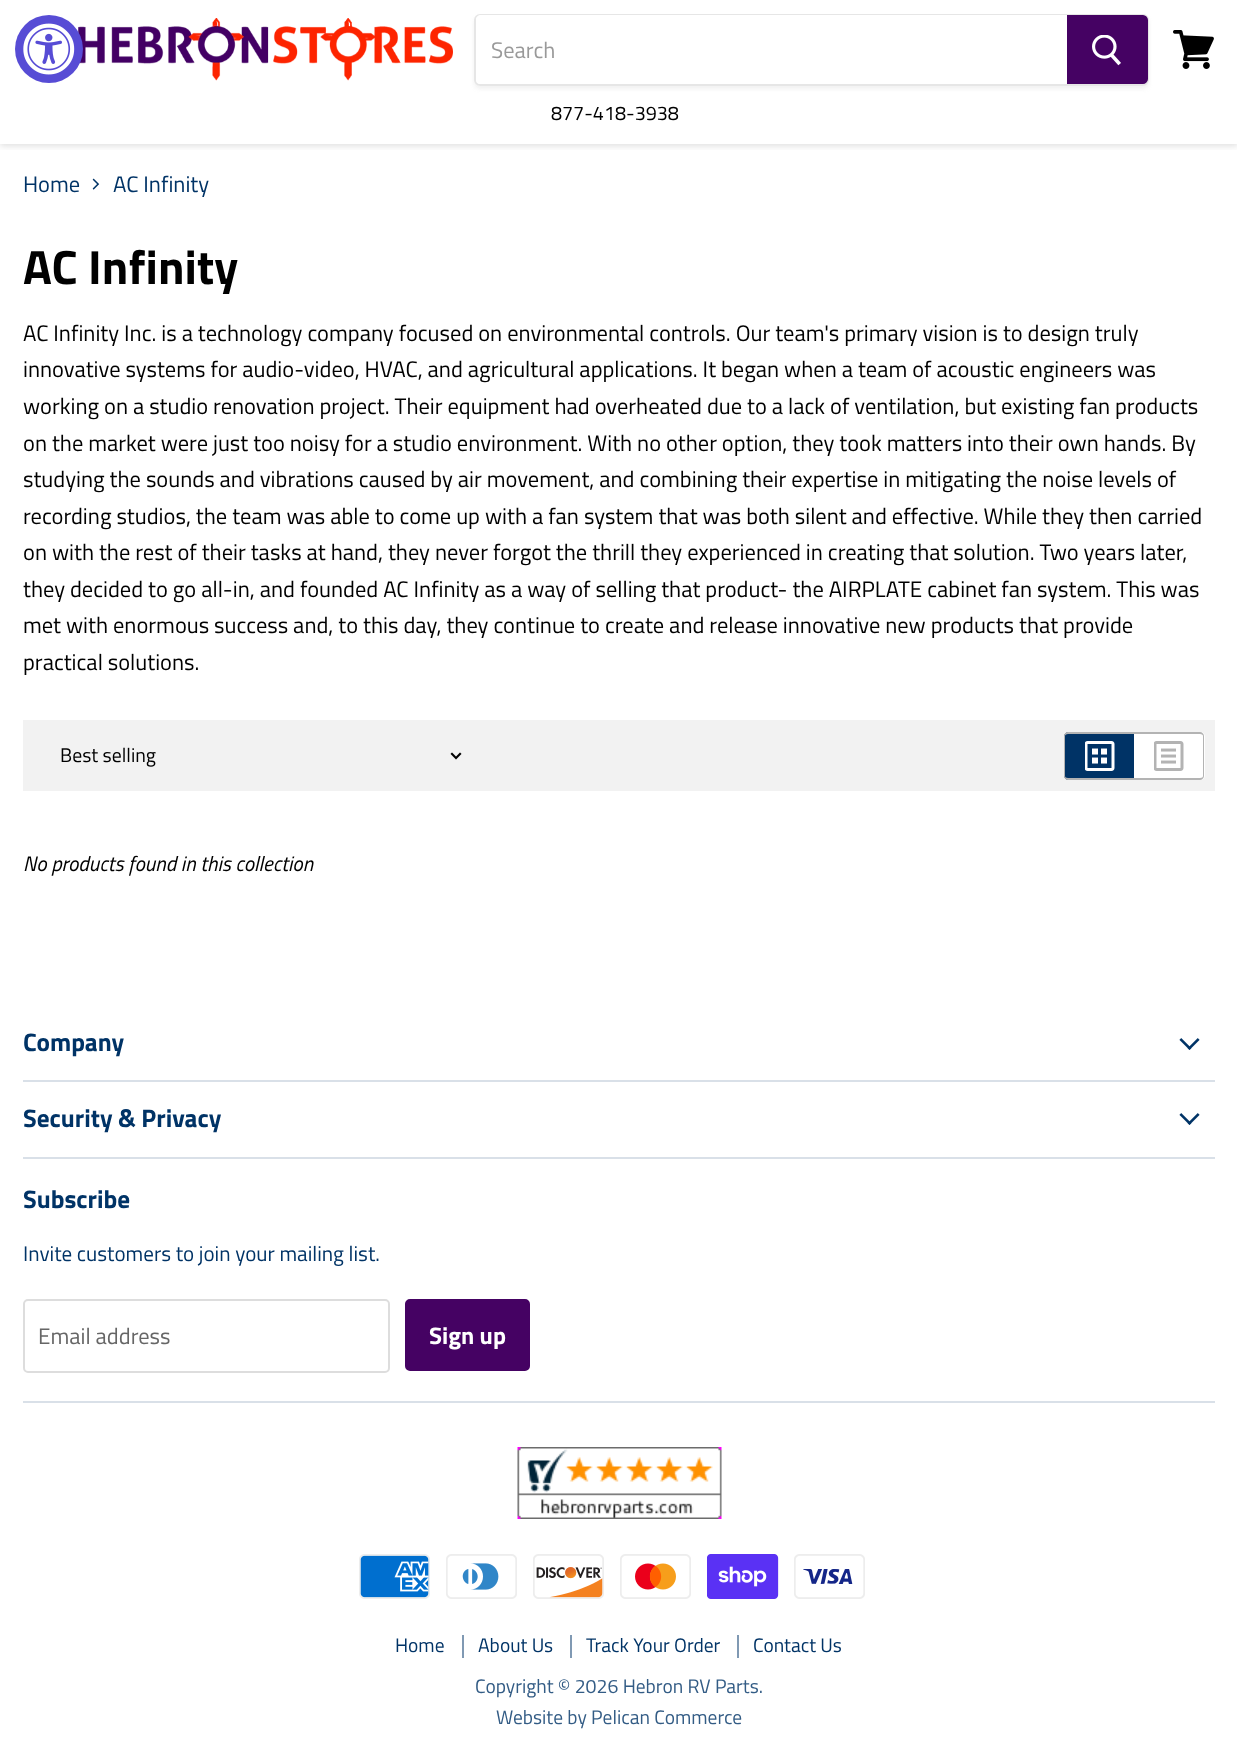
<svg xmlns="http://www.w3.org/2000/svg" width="1237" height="1743">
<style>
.a{font:22.5px Titillium Web;fill:#999}
.b{font:19.75px Titillium Web;fill:#000}
.c{font:22.5px Titillium Web;fill:#036}
.d{font:bold 48px Titillium Web;fill:#000}
.e{font:22.5px Titillium Web;fill:#000}
.f{font:italic 21px Titillium Web;fill:#000}
.g{font:bold 25.25px Titillium Web;fill:#036}
.h{font:21.1px Titillium Web;fill:#036}
.i{font:22.5px Titillium Web;fill:#666}
.j{font:bold 24px Titillium Web;fill:#fff}
.k{font:19.5px Titillium Web;fill:#036}
.l{font:19.5px Titillium Web;fill:#335c85}
</style>
<defs>
<clipPath id="clip1"><path d="M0 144h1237v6H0z"/></clipPath>
<clipPath id="clip2"><path d="M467 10h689v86h-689zm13 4h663c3.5 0 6 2.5 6 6v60c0 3.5-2.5 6-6 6h-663c-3.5 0-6-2.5-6-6v-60c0-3.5 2.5-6 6-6z" clip-rule="evenodd"/></clipPath>
</defs>
<rect width="100%" height="100%" fill="#fff"/>
<g clip-path="url(#clip1)">
<path fill="#80808040" filter="blur(3px)" d="M0 2h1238v144H0z"/>
</g>
<image href="2.png" x="78" y="18" width="375" height="63"/>
<circle fill="#574cd5" cx="49" cy="49" r="34"/>
<image href="1.png" x="23" y="23" width="52" height="52"/>
<g clip-path="url(#clip2)">
<rect fill="#8080801c" filter="blur(2px)" x="474" y="17" width="675" height="72" rx="6"/>
</g>
<rect fill="none" stroke="#80808033" stroke-width="2" x="475" y="15" width="673" height="70" rx="5"/>
<path fill="#fff" d="M481 15h586v69h-586c-3 0-5-2-5-5v-59c0-3 2-5 5-5z"/>
<path fill="#450263" stroke="#450263" stroke-width="2" d="M1068 16h75c2 0 4 2 4 4v59c0 2-2 4-4 4h-75z"/>
<image href="3.png" x="1092" y="35" width="29" height="31"/>
<image href="4.png" x="1173" y="30" width="41" height="39"/>
<image href="5.png" x="92" y="178" width="8" height="12"/>
<path fill="#f2f2f2" d="M23 720h1192v71H23z"/>
<image href="6.png" x="450" y="752" width="12" height="8"/>
<path fill="#036" d="M1069 732h65v48h-65c-3 0-5-2-5-5v-38c0-3 2-5 5-5z"/>
<path fill="#b3b3b3" fill-rule="evenodd" d="M1068 732h66v48h-66c-2 0-4-2-4-4v-40c0-2 2-4 4-4zm0 2h66v44h-66c-2 0-3-1-3-2v-40c0-1 1-2 3-2z"/>
<image href="7.png" x="1085" y="741" width="30" height="30"/>
<path fill="#fff" d="M1134 732h66c3 0 5 2 5 5v38c0 3-2 5-5 5h-66z"/>
<path fill="#b3b3b3" fill-rule="evenodd" d="M1134 732h66c2 0 4 2 4 4v40c0 2-2 4-4 4h-66zm0 2h66c2 0 3 1 3 2v40c0 1-1 2-3 2h-66z"/>
<image href="8.png" x="1154" y="741" width="30" height="30"/>
<path fill="#d9e0e8" d="M23 1080h1192v2H23z"/>
<image href="9.png" x="1179" y="1038" width="21" height="12"/>
<path fill="#d9e0e8" d="M23 1157h1192v2H23z"/>
<image href="9.png" x="1179" y="1113" width="21" height="12"/>
<path fill="#d9e0e8" d="M23 1401h1192v2H23z"/>
<rect fill="none" stroke="#ddd" stroke-width="2" x="24" y="1300" width="365" height="72" rx="4"/>
<rect fill="#450263" stroke="#450263" stroke-width="2" x="406" y="1300" width="123" height="70" rx="4"/>
<image href="10.png" x="517" y="1447" width="205" height="72"/>
<image href="11.png" x="359" y="1554" width="71" height="45"/>
<image href="12.png" x="446" y="1554" width="71" height="45"/>
<image href="13.png" x="533" y="1554" width="71" height="45"/>
<image href="14.png" x="620" y="1554" width="71" height="45"/>
<image href="15.png" x="707" y="1554" width="72" height="45"/>
<image href="16.png" x="794" y="1554" width="71" height="45"/>
<path fill="#8099b3" d="M462 1635h2v23H462z"/>
<path fill="#8099b3" d="M570 1635h2v23H570z"/>
<path fill="#8099b3" d="M737 1635h2v23H737z"/>
<text class="a" x="491" y="58">Search</text>
<text class="b" x="551" y="120">877-418-3938</text>
<text class="c" x="23" y="192">Home</text>
<text class="c" x="113" y="192">AC Infinity</text>
<text class="d" x="23" y="284">AC Infinity</text>
<text class="e" x="23" y="341">AC Infinity Inc. is a technology company focused on environmental controls. Our team's primary vision is to design truly</text>
<text class="e" x="23" y="377">innovative systems for audio-video, HVAC, and agricultural applications. It began when a team of acoustic engineers was</text>
<text class="e" x="23" y="414">working on a studio renovation project. Their equipment had overheated due to a lack of ventilation, but existing fan products</text>
<text class="e" x="23" y="451">on the market were just too noisy for a studio environment. With no other option, they took matters into their own hands. By</text>
<text class="e" x="23" y="487">studying the sounds and vibrations caused by air movement, and combining their expertise in mitigating the noise levels of</text>
<text class="e" x="23" y="524">recording studios, the team was able to come up with a fan system that was both silent and effective. While they then carried</text>
<text class="e" x="23" y="560">on with the rest of their tasks at hand, they never forgot the thrill they experienced in creating that solution. Two years later,</text>
<text class="e" x="23" y="597">they decided to go all-in, and founded AC Infinity as a way of selling that product- the AIRPLATE cabinet fan system. This was</text>
<text class="e" x="23" y="633">met with enormous success and, to this day, they continue to create and release innovative new products that provide</text>
<text class="e" x="23" y="670">practical solutions.</text>
<text class="b" x="60" y="762">Best selling</text>
<text class="f" x="23" y="871">No products found in this collection</text>
<text class="g" x="23" y="1051">Company</text>
<text class="g" x="23" y="1127">Security &amp; Privacy</text>
<text class="g" x="23" y="1208">Subscribe</text>
<text class="h" x="23" y="1261">Invite customers to join your mailing list.</text>
<text class="i" x="38" y="1344">Email address</text>
<text class="j" x="429" y="1344">Sign up</text>
<text class="k" x="395" y="1652">Home</text>
<text class="k" x="478" y="1652">About Us</text>
<text class="k" x="586" y="1652">Track Your Order</text>
<text class="k" x="753" y="1652">Contact Us</text>
<text class="l" x="475" y="1693">Copyright © 2026 Hebron RV Parts.</text>
<text class="l" x="496" y="1724">Website by Pelican Commerce</text>
</svg>
